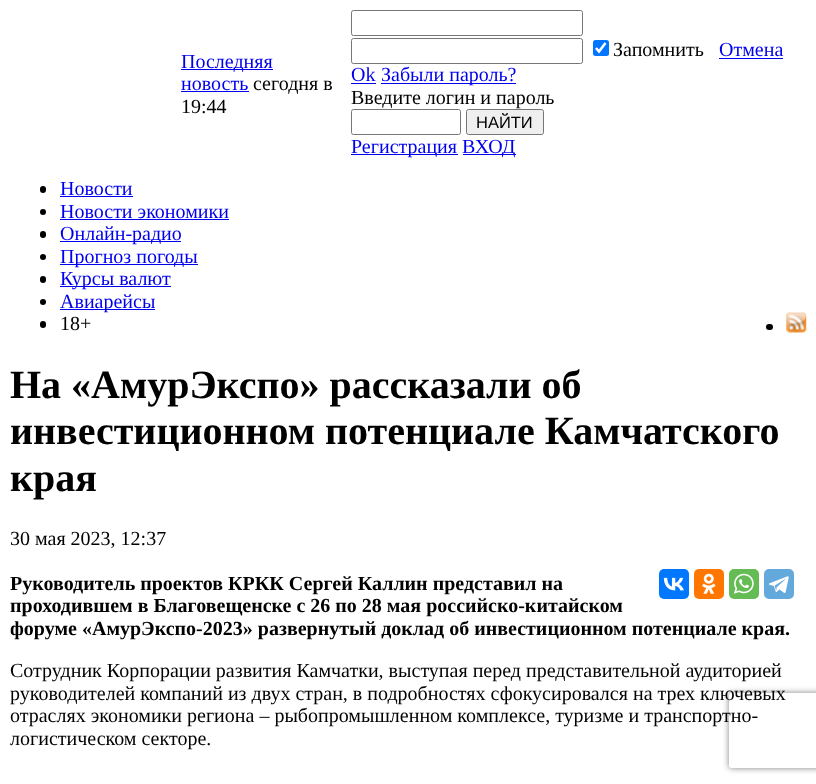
<svg xmlns="http://www.w3.org/2000/svg" width="816" height="784">
<style>
.a{font:20px Liberation Serif;fill:#00e}
.b{font:20px Liberation Serif;fill:#000}
.c{font:16.5px Liberation Sans;fill:#000}
.d{font:bold 40px Liberation Serif;fill:#000}
.e{font:bold 20px Liberation Serif;fill:#000}
</style>
<defs>
<clipPath id="clip1"><path d="M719 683h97v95h-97zm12.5 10h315c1.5 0 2.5 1 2.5 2.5v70c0 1.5-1 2.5-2.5 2.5h-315c-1.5 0-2.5-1-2.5-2.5v-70c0-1.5 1-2.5 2.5-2.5z" clip-rule="evenodd"/></clipPath>
</defs>
<rect width="100%" height="100%" fill="#fff"/>
<path fill="#00e" d="M181 69h92v1H181z"/>
<path fill="#00e" d="M181 91h68v1H181z"/>
<rect fill="none" stroke="#767676" x="351.5" y="10.5" width="231" height="25" rx="2"/>
<rect fill="none" stroke="#767676" x="351.5" y="38.5" width="231" height="25" rx="2"/>
<rect fill="#0075ff" x="593" y="40" width="16" height="16" rx="2.5"/>
<path fill="none" stroke="#fff" stroke-width="2.6" d="M596 48l3 3.5l6.5-8.5"/>
<path fill="#00e" d="M719 58h64v1H719z"/>
<path fill="#00e" d="M351 83h25v1H351z"/>
<path fill="#00e" d="M381 83h135v1H381z"/>
<rect fill="none" stroke="#767676" x="351.5" y="109.5" width="109" height="25" rx="2"/>
<rect fill="#efefef" stroke="#767676" x="466.5" y="109.5" width="77" height="25" rx="2"/>
<path fill="#00e" d="M351 154h107v1H351z"/>
<path fill="#00e" d="M463 154h53v1H463z"/>
<rect fill="#000" x="40" y="186" width="6" height="7" rx="3"/>
<path fill="#00e" d="M60 196h73v1H60z"/>
<circle fill="#000" cx="43" cy="212" r="3"/>
<path fill="#00e" d="M60 219h169v1H60z"/>
<rect fill="#000" x="40" y="231" width="6" height="7" rx="3"/>
<path fill="#00e" d="M60 241h121v1H60z"/>
<circle fill="#000" cx="43" cy="257" r="3"/>
<path fill="#00e" d="M60 264h138v1H60z"/>
<rect fill="#000" x="40" y="276" width="6" height="7" rx="3"/>
<path fill="#00e" d="M60 286h111v1H60z"/>
<circle fill="#000" cx="43" cy="302" r="3"/>
<path fill="#00e" d="M60 309h95v1H60z"/>
<rect fill="#000" x="40" y="321" width="6" height="7" rx="3"/>
<rect fill="#000" x="766" y="324" width="7" height="6" rx="3"/>
<image href="1.png" x="786" y="312" width="21" height="21"/>
<rect fill="#07f" x="659" y="569" width="30" height="30" rx="5"/>
<image href="2.png" x="663" y="577" width="21" height="14"/>
<rect fill="#f70" x="694" y="569" width="30" height="30" rx="5"/>
<image href="3.png" x="702" y="573" width="14" height="21"/>
<rect fill="#65bc54" x="729" y="569" width="30" height="30" rx="5"/>
<image href="4.png" x="733" y="573" width="21" height="21"/>
<rect fill="#64a9dc" x="764" y="569" width="30" height="30" rx="5"/>
<image href="5.png" x="768" y="576" width="21" height="17"/>
<g clip-path="url(#clip1)">
<rect fill="#808080" filter="blur(3px)" x="729" y="693" width="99" height="75" rx="2.5"/>
</g>
<text class="a" x="181" y="68">Последняя</text>
<text class="a" x="181" y="90">новость</text>
<text class="b" x="253" y="90">сегодня в</text>
<text class="b" x="181" y="113">19:44</text>
<text class="b" x="613" y="56">Запомнить</text>
<text class="a" x="719" y="56">Отмена</text>
<text class="a" x="351" y="81">Ok</text>
<text class="a" x="381" y="81">Забыли пароль?</text>
<text class="b" x="351" y="104">Введите логин и пароль</text>
<text class="c" x="476" y="128">НАЙТИ</text>
<text class="a" x="351" y="153">Регистрация</text>
<text class="a" x="462" y="153">ВХОД</text>
<text class="a" x="60" y="195">Новости</text>
<text class="a" x="60" y="218">Новости экономики</text>
<text class="a" x="60" y="240">Онлайн-радио</text>
<text class="a" x="60" y="263">Прогноз погоды</text>
<text class="a" x="60" y="285">Курсы валют</text>
<text class="a" x="60" y="308">Авиарейсы</text>
<text class="b" x="60" y="330">18+</text>
<text class="d" x="10" y="398">На «АмурЭкспо» рассказали об</text>
<text class="d" x="10" y="444">инвестиционном потенциале Камчатского</text>
<text class="d" x="10" y="491">края</text>
<text class="b" x="10" y="545">30 мая 2023, 12:37</text>
<text class="e" x="10" y="590">Руководитель проектов КРКК Сергей Каллин представил на</text>
<text class="e" x="10" y="612">проходившем в Благовещенске с 26 по 28 мая российско-китайском</text>
<text class="e" x="10" y="635">форуме «АмурЭкспо-2023» развернутый доклад об инвестиционном потенциале края.</text>
<text class="b" x="10" y="677">Сотрудник Корпорации развития Камчатки, выступая перед представительной аудиторией</text>
<text class="b" x="10" y="700">руководителей компаний из двух стран, в подробностях сфокусировался на трех ключевых</text>
<text class="b" x="10" y="722">отраслях экономики региона – рыбопромышленном комплексе, туризме и транспортно-</text>
<text class="b" x="10" y="745">логистическом секторе.</text>
</svg>
